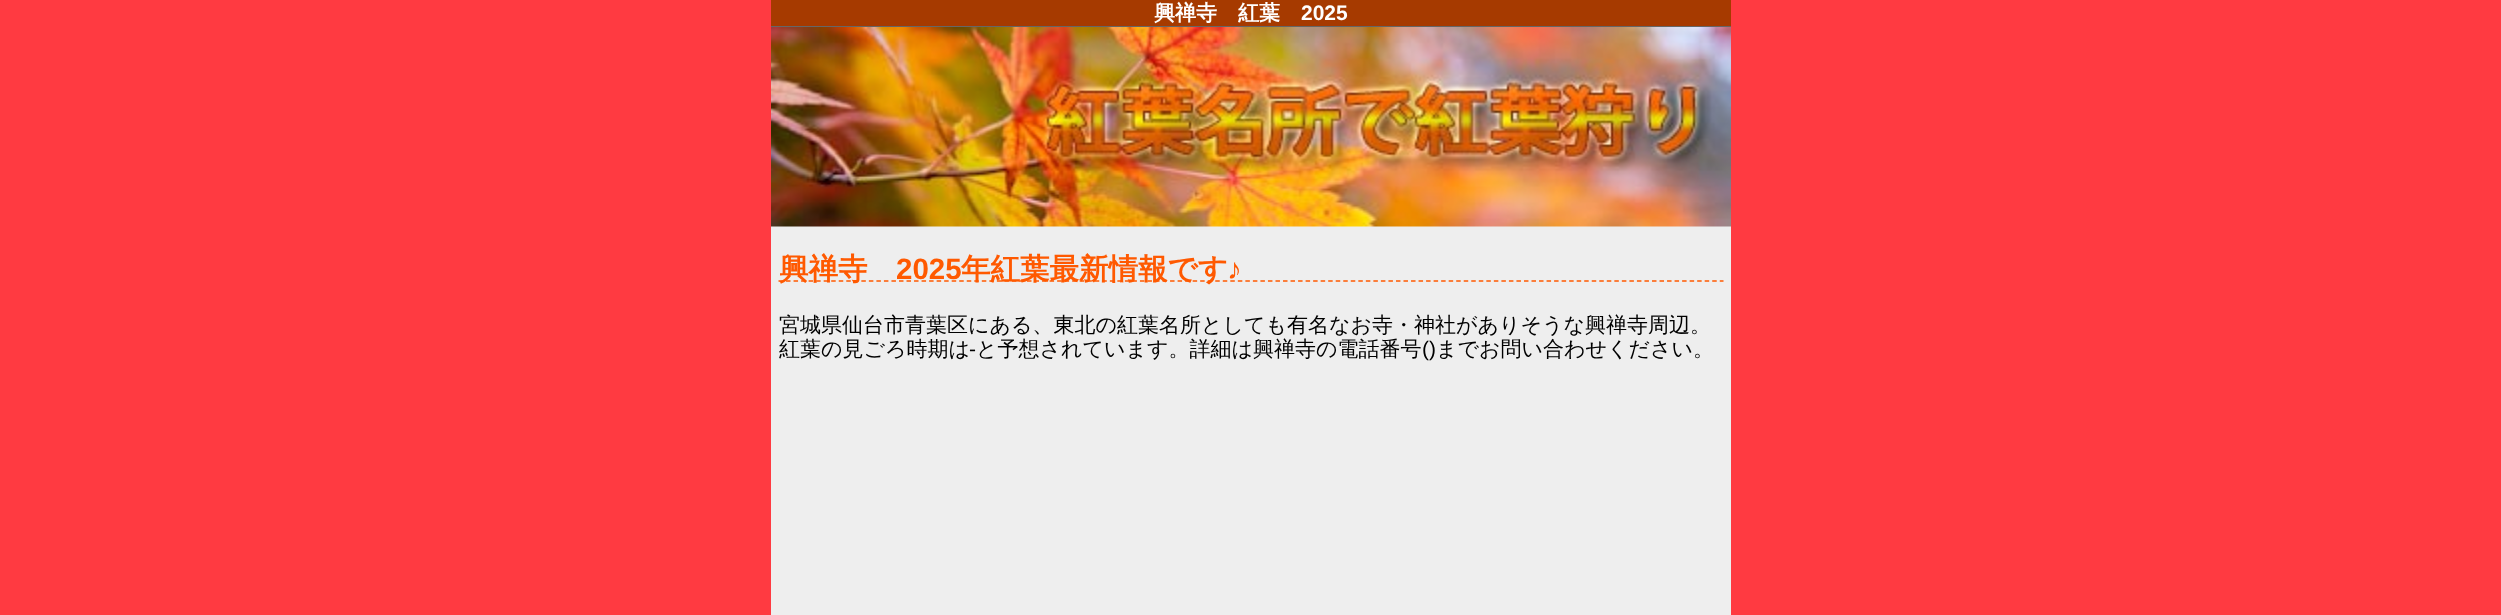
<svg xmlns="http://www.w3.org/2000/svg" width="2501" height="615">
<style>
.a{font:bold 21px WenQuanYi Zen Hei;fill:#fff}
.b{font:bold 21px Liberation Sans;fill:#fff}
.c{font:bold 29.5px WenQuanYi Zen Hei;fill:#ff5900}
.d{font:bold 29.5px Liberation Sans;fill:#ff5900}
.e{font:500 21px WenQuanYi Zen Hei;fill:#000}
.f{font:21px Liberation Sans;fill:#000}
</style>
<rect width="100%" height="100%" fill="#ff3a41"/>
<path fill="#eee" d="M771 226h960v389H771z"/>
<path fill="#a63a00" d="M771 0h960v26H771z"/>
<path fill="#666" d="M771 26h960v1H771z"/>
<image href="1.png" x="771" y="27" width="960" height="200"/>
<path fill="none" stroke="#ff5900" stroke-width="1.5" stroke-dasharray="4.5 3.03" d="M778.5 281h945"/>
<text class="a" x="1154" y="20">興禅寺　紅葉</text>
<text class="b" x="1301" y="20">2025</text>
<text class="c" x="779" y="279">興禅寺</text>
<text class="d" x="896" y="279">2025</text>
<text class="c" x="961" y="279">年紅葉最新情報です</text>
<text class="d" x="1227" y="279">♪</text>
<text class="e" x="779" y="332">宮城県仙台市青葉区にある、東北の紅葉名所としても有名なお寺・神社がありそうな興禅寺周辺。</text>
<text class="e" x="779" y="356">紅葉の見ごろ時期は</text>
<text class="f" x="969" y="356">-</text>
<text class="e" x="976" y="356">と予想されています。詳細は興禅寺の電話番号</text>
<text class="f" x="1422" y="356">()</text>
<text class="e" x="1436" y="356">までお問い合わせください。</text>
</svg>
